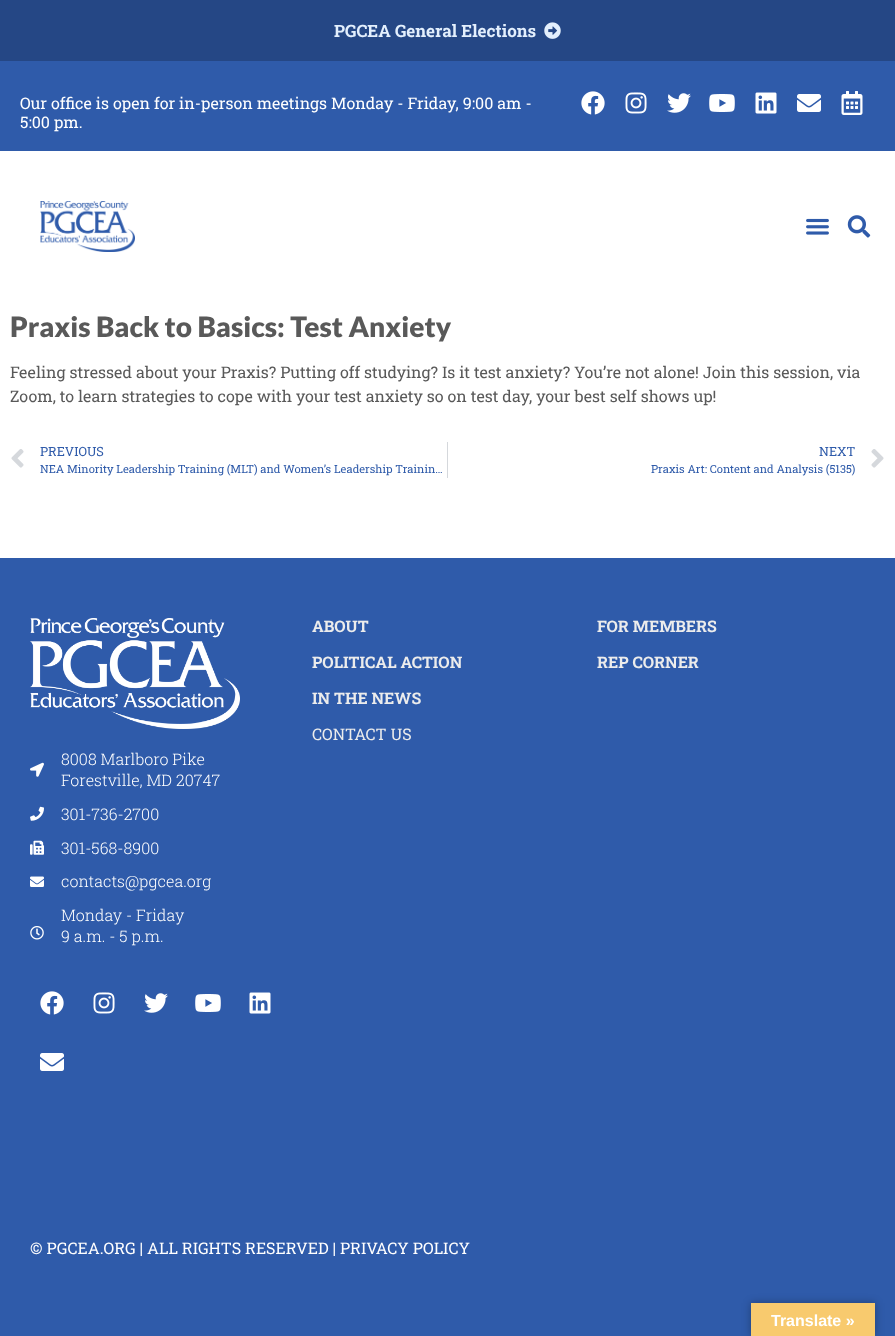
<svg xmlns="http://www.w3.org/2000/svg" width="895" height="1336">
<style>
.a{font:bold 17px Roboto Slab;fill:#e3effd}
.b{font:16px Roboto Slab;fill:#fff}
.c{font:900 28px Lato;fill:#595959}
.d{font:16px Roboto Slab;fill:#595959}
.e{font:12.75px Roboto Slab;fill:#2f5baa}
.f{font:11.2px Roboto Slab;fill:#2f5baa}
.g{font:bold 16px Roboto Slab;fill:#ececec}
.h{font:16px Roboto Slab;fill:#ececec}
.i{font:300 16px Roboto Slab;fill:#fff}
.j{font:bold 16px Liberation Sans;fill:#fff}
</style>
<rect width="100%" height="100%" fill="#fff"/>
<path fill="#254785" d="M0 0h895v61H0z"/>
<image href="1.png" x="544" y="22" width="17" height="17"/>
<path fill="#2f5baa" d="M0 61h895v90H0z"/>
<image href="2.png" x="581" y="91" width="24" height="24"/>
<image href="3.png" x="625" y="92" width="22" height="22"/>
<image href="4.png" x="667" y="93" width="24" height="20"/>
<image href="5.png" x="709" y="94" width="26" height="18"/>
<image href="6.png" x="755" y="92" width="22" height="22"/>
<image href="7.png" x="797" y="94" width="24" height="18"/>
<image href="8.png" x="841" y="91" width="22" height="24"/>
<image href="9.png" x="40" y="201" width="95" height="51"/>
<image href="10.png" x="806" y="218" width="23" height="17"/>
<image href="11.png" x="847" y="215" width="24" height="23"/>
<image href="12.png" x="11" y="449" width="13" height="19"/>
<path fill="#d5d8dc" d="M447 442h1v36H447z"/>
<image href="13.png" x="871" y="449" width="13" height="19"/>
<path fill="#2f5baa" d="M0 558h895v778H0z"/>
<image href="14.png" x="30" y="618" width="210" height="111"/>
<image href="15.png" x="30" y="762" width="14" height="15"/>
<image href="16.png" x="30" y="806" width="14" height="15"/>
<image href="17.png" x="30" y="840" width="14" height="15"/>
<image href="18.png" x="30" y="876" width="14" height="11"/>
<image href="19.png" x="30" y="926" width="14" height="14"/>
<image href="2.png" x="40" y="991" width="24" height="24"/>
<image href="3.png" x="93" y="992" width="22" height="22"/>
<image href="4.png" x="144" y="993" width="24" height="20"/>
<image href="5.png" x="195" y="994" width="26" height="18"/>
<image href="6.png" x="249" y="992" width="22" height="22"/>
<image href="7.png" x="40" y="1053" width="24" height="18"/>
<path fill="#0000004d" filter="blur(4.5px)" d="M751 1303h124v33H751z"/>
<path fill="#f8ca6e" d="M751 1303h124v33H751z"/>
<text class="a" x="334" y="37">PGCEA General Elections</text>
<text class="b" x="20" y="109">Our office is open for in-person meetings Monday - Friday, 9:00 am -</text>
<text class="b" x="20" y="128">5:00 pm.</text>
<text class="c" x="10" y="337">Praxis Back to Basics: Test Anxiety</text>
<text class="d" x="10" y="378">Feeling stressed about your Praxis? Putting off studying? Is it test anxiety? You’re not alone! Join this session, via</text>
<text class="d" x="10" y="402">Zoom, to learn strategies to cope with your test anxiety so on test day, your best self shows up!</text>
<text class="e" x="40" y="456">PREVIOUS</text>
<text class="f" x="40" y="473">NEA Minority Leadership Training (MLT) and Women’s Leadership Trainin…</text>
<text class="e" x="819" y="456">NEXT</text>
<text class="f" x="651" y="473">Praxis Art: Content and Analysis (5135)</text>
<text class="g" x="312" y="632">ABOUT</text>
<text class="g" x="312" y="668">POLITICAL ACTION</text>
<text class="g" x="312" y="704">IN THE NEWS</text>
<text class="h" x="312" y="740">CONTACT US</text>
<text class="g" x="597" y="632">FOR MEMBERS</text>
<text class="g" x="597" y="668">REP CORNER</text>
<text class="i" x="61" y="765">8008 Marlboro Pike</text>
<text class="i" x="61" y="786">Forestville, MD 20747</text>
<text class="i" x="61" y="820">301-736-2700</text>
<text class="i" x="61" y="854">301-568-8900</text>
<text class="i" x="61" y="887">contacts@pgcea.org</text>
<text class="i" x="61" y="921">Monday - Friday</text>
<text class="i" x="61" y="942">9 a.m. - 5 p.m.</text>
<text class="b" x="30" y="1254">© PGCEA.ORG | ALL RIGHTS RESERVED | PRIVACY POLICY</text>
<text class="j" x="771" y="1326">Translate »</text>
</svg>
